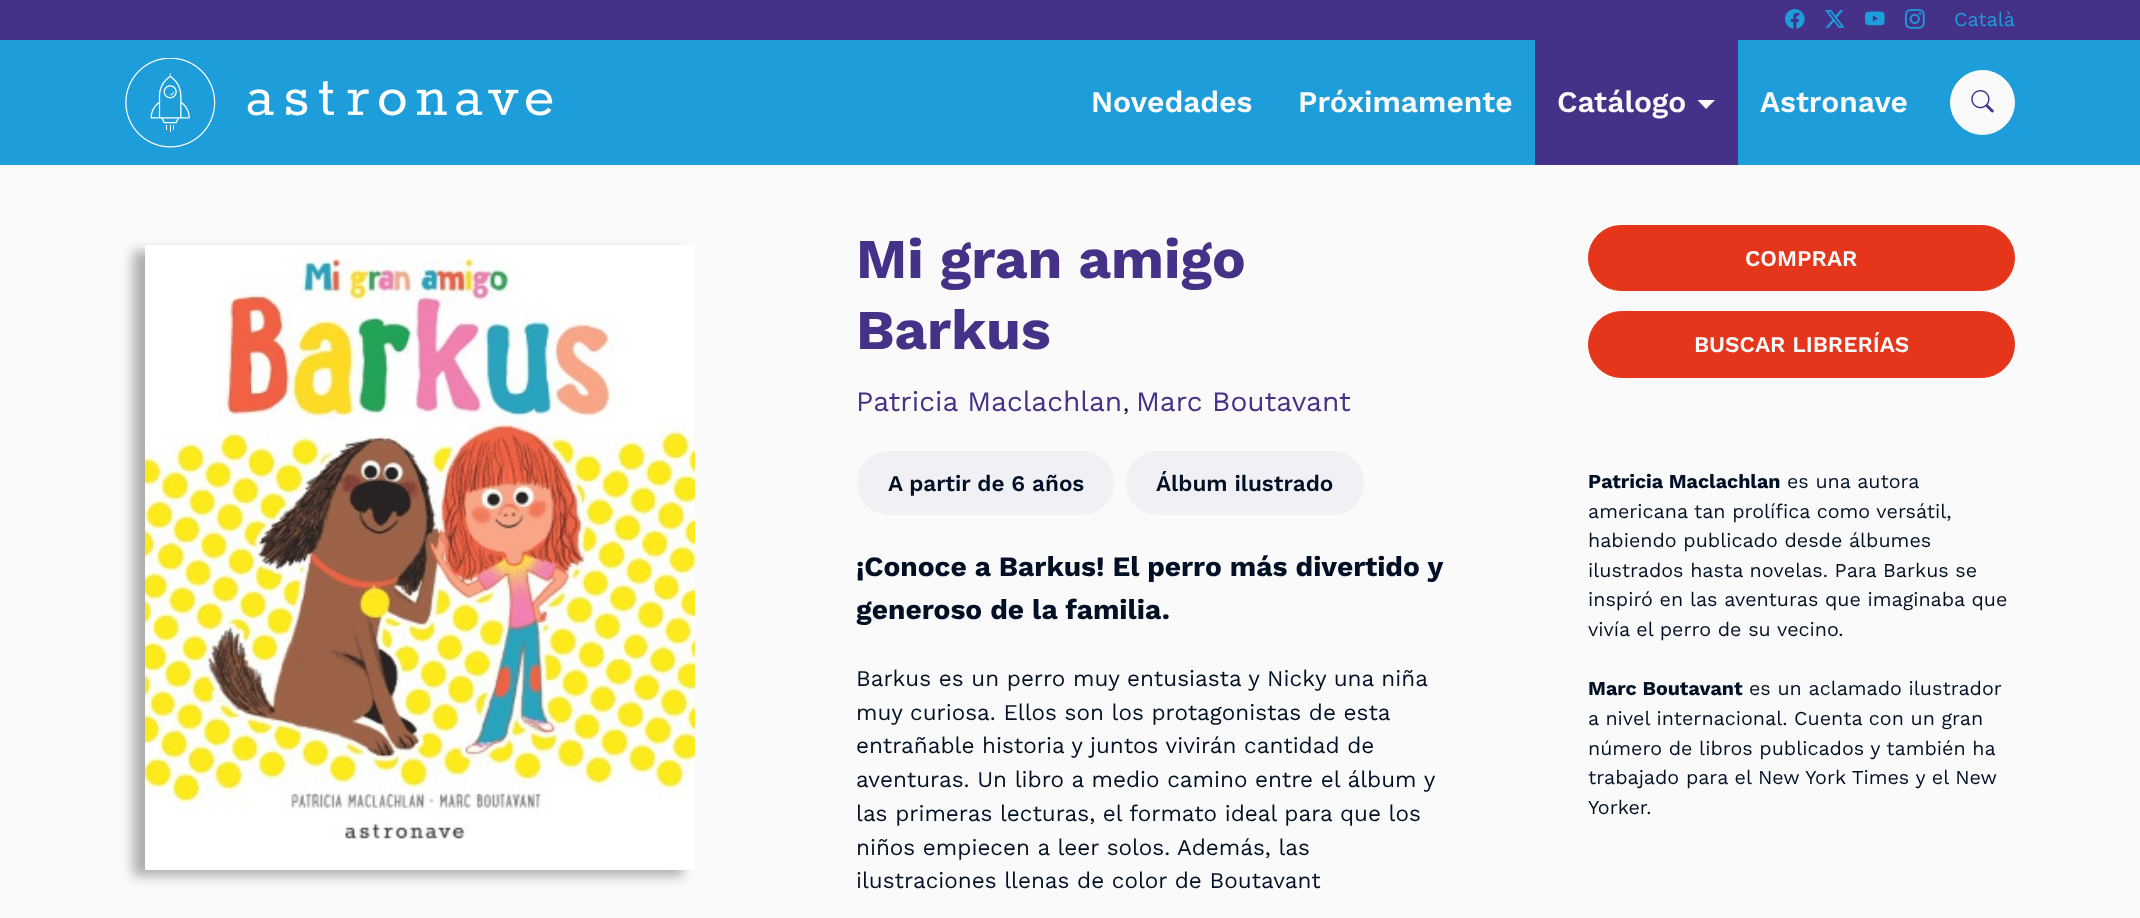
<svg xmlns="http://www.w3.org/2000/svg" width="2140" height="918">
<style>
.a{font:19.7px Work Sans;fill:#1d9dd9}
.b{font:600 30px Work Sans;fill:#fafafa}
.c{font:bold 56.25px Work Sans;fill:#453187}
.d{font:28.1px Work Sans;fill:#453187}
.e{font:22.5px Work Sans;fill:#011024}
.f{font:600 22.5px Work Sans;fill:#011024}
.g{font:bold 28.1px Work Sans;fill:#011024}
.h{font:600 22.5px Work Sans;fill:#fafafa}
.i{font:bold 19.7px Work Sans;fill:#011024}
.j{font:19.7px Work Sans;fill:#011024}
</style>
<rect width="100%" height="100%" fill="#fafafa"/>
<path fill="#453187" d="M0 0h2140v40H0z"/>
<image href="1.png" x="1785" y="9" width="20" height="20"/>
<image href="2.png" x="1825" y="10" width="20" height="18"/>
<image href="3.png" x="1865" y="11" width="20" height="15"/>
<image href="4.png" x="1905" y="9" width="20" height="20"/>
<path fill="#1d9dd9" d="M0 40h2140v125H0z"/>
<image href="5.png" x="125" y="58" width="428" height="90"/>
<path fill="#453187" d="M1535 40h203v125H1535z"/>
<path fill="#fafafa" d="M1697.5 100h17.5l-9 9z"/>
<circle fill="#fafafa" stroke="#fafafa" cx="1982.5" cy="102.5" r="32"/>
<image href="6.png" x="1971" y="90" width="23" height="23"/>
<path fill="#0000004d" filter="blur(6px)" d="M133 251h550v625H133z"/>
<image href="7.png" x="145" y="245" width="550" height="625"/>
<rect fill="#f1f0f4" stroke="#fafafa" x="856.5" y="450.5" width="258" height="65" rx="32.5"/>
<rect fill="#f1f0f4" stroke="#fafafa" x="1125.5" y="450.5" width="239" height="65" rx="32.5"/>
<rect fill="#e5361c" stroke="#e5361c" x="1588.5" y="225.5" width="426" height="65" rx="32.5"/>
<rect fill="#e5361c" stroke="#e5361c" x="1588.5" y="311.5" width="426" height="66" rx="33"/>
<text class="a" x="1954" y="26">Català</text>
<text class="b" x="1091" y="112">Novedades</text>
<text class="b" x="1298" y="112">Próximamente</text>
<text class="b" x="1557" y="112">Catálogo</text>
<text class="b" x="1760" y="112">Astronave</text>
<text class="c" x="856" y="278">Mi gran amigo</text>
<text class="c" x="856" y="349">Barkus</text>
<text class="d" x="856" y="411">Patricia Maclachlan</text>
<text class="e" x="1123" y="411">,</text>
<text class="d" x="1136" y="411">Marc Boutavant</text>
<text class="f" x="888" y="491">A partir de 6 años</text>
<text class="f" x="1156" y="491">Álbum ilustrado</text>
<text class="g" x="856" y="576">¡Conoce a Barkus! El perro más divertido y</text>
<text class="g" x="856" y="619">generoso de la familia.</text>
<text class="e" x="856" y="686">Barkus es un perro muy entusiasta y Nicky una niña</text>
<text class="e" x="856" y="720">muy curiosa. Ellos son los protagonistas de esta</text>
<text class="e" x="856" y="753">entrañable historia y juntos vivirán cantidad de</text>
<text class="e" x="856" y="787">aventuras. Un libro a medio camino entre el álbum y</text>
<text class="e" x="856" y="821">las primeras lecturas, el formato ideal para que los</text>
<text class="e" x="856" y="855">niños empiecen a leer solos. Además, las</text>
<text class="e" x="856" y="888">ilustraciones llenas de color de Boutavant</text>
<text class="h" x="1745" y="266">COMPRAR</text>
<text class="h" x="1694" y="352">BUSCAR LIBRERÍAS</text>
<text class="i" x="1588" y="488">Patricia Maclachlan</text>
<text class="j" x="1787" y="488">es una autora</text>
<text class="j" x="1588" y="518">americana tan prolífica como versátil,</text>
<text class="j" x="1588" y="547">habiendo publicado desde álbumes</text>
<text class="j" x="1588" y="577">ilustrados hasta novelas. Para Barkus se</text>
<text class="j" x="1588" y="606">inspiró en las aventuras que imaginaba que</text>
<text class="j" x="1588" y="636">vivía el perro de su vecino.</text>
<text class="i" x="1588" y="695">Marc Boutavant</text>
<text class="j" x="1749" y="695">es un aclamado ilustrador</text>
<text class="j" x="1588" y="725">a nivel internacional. Cuenta con un gran</text>
<text class="j" x="1588" y="755">número de libros publicados y también ha</text>
<text class="j" x="1588" y="784">trabajado para el New York Times y el New</text>
<text class="j" x="1588" y="814">Yorker.</text>
</svg>
